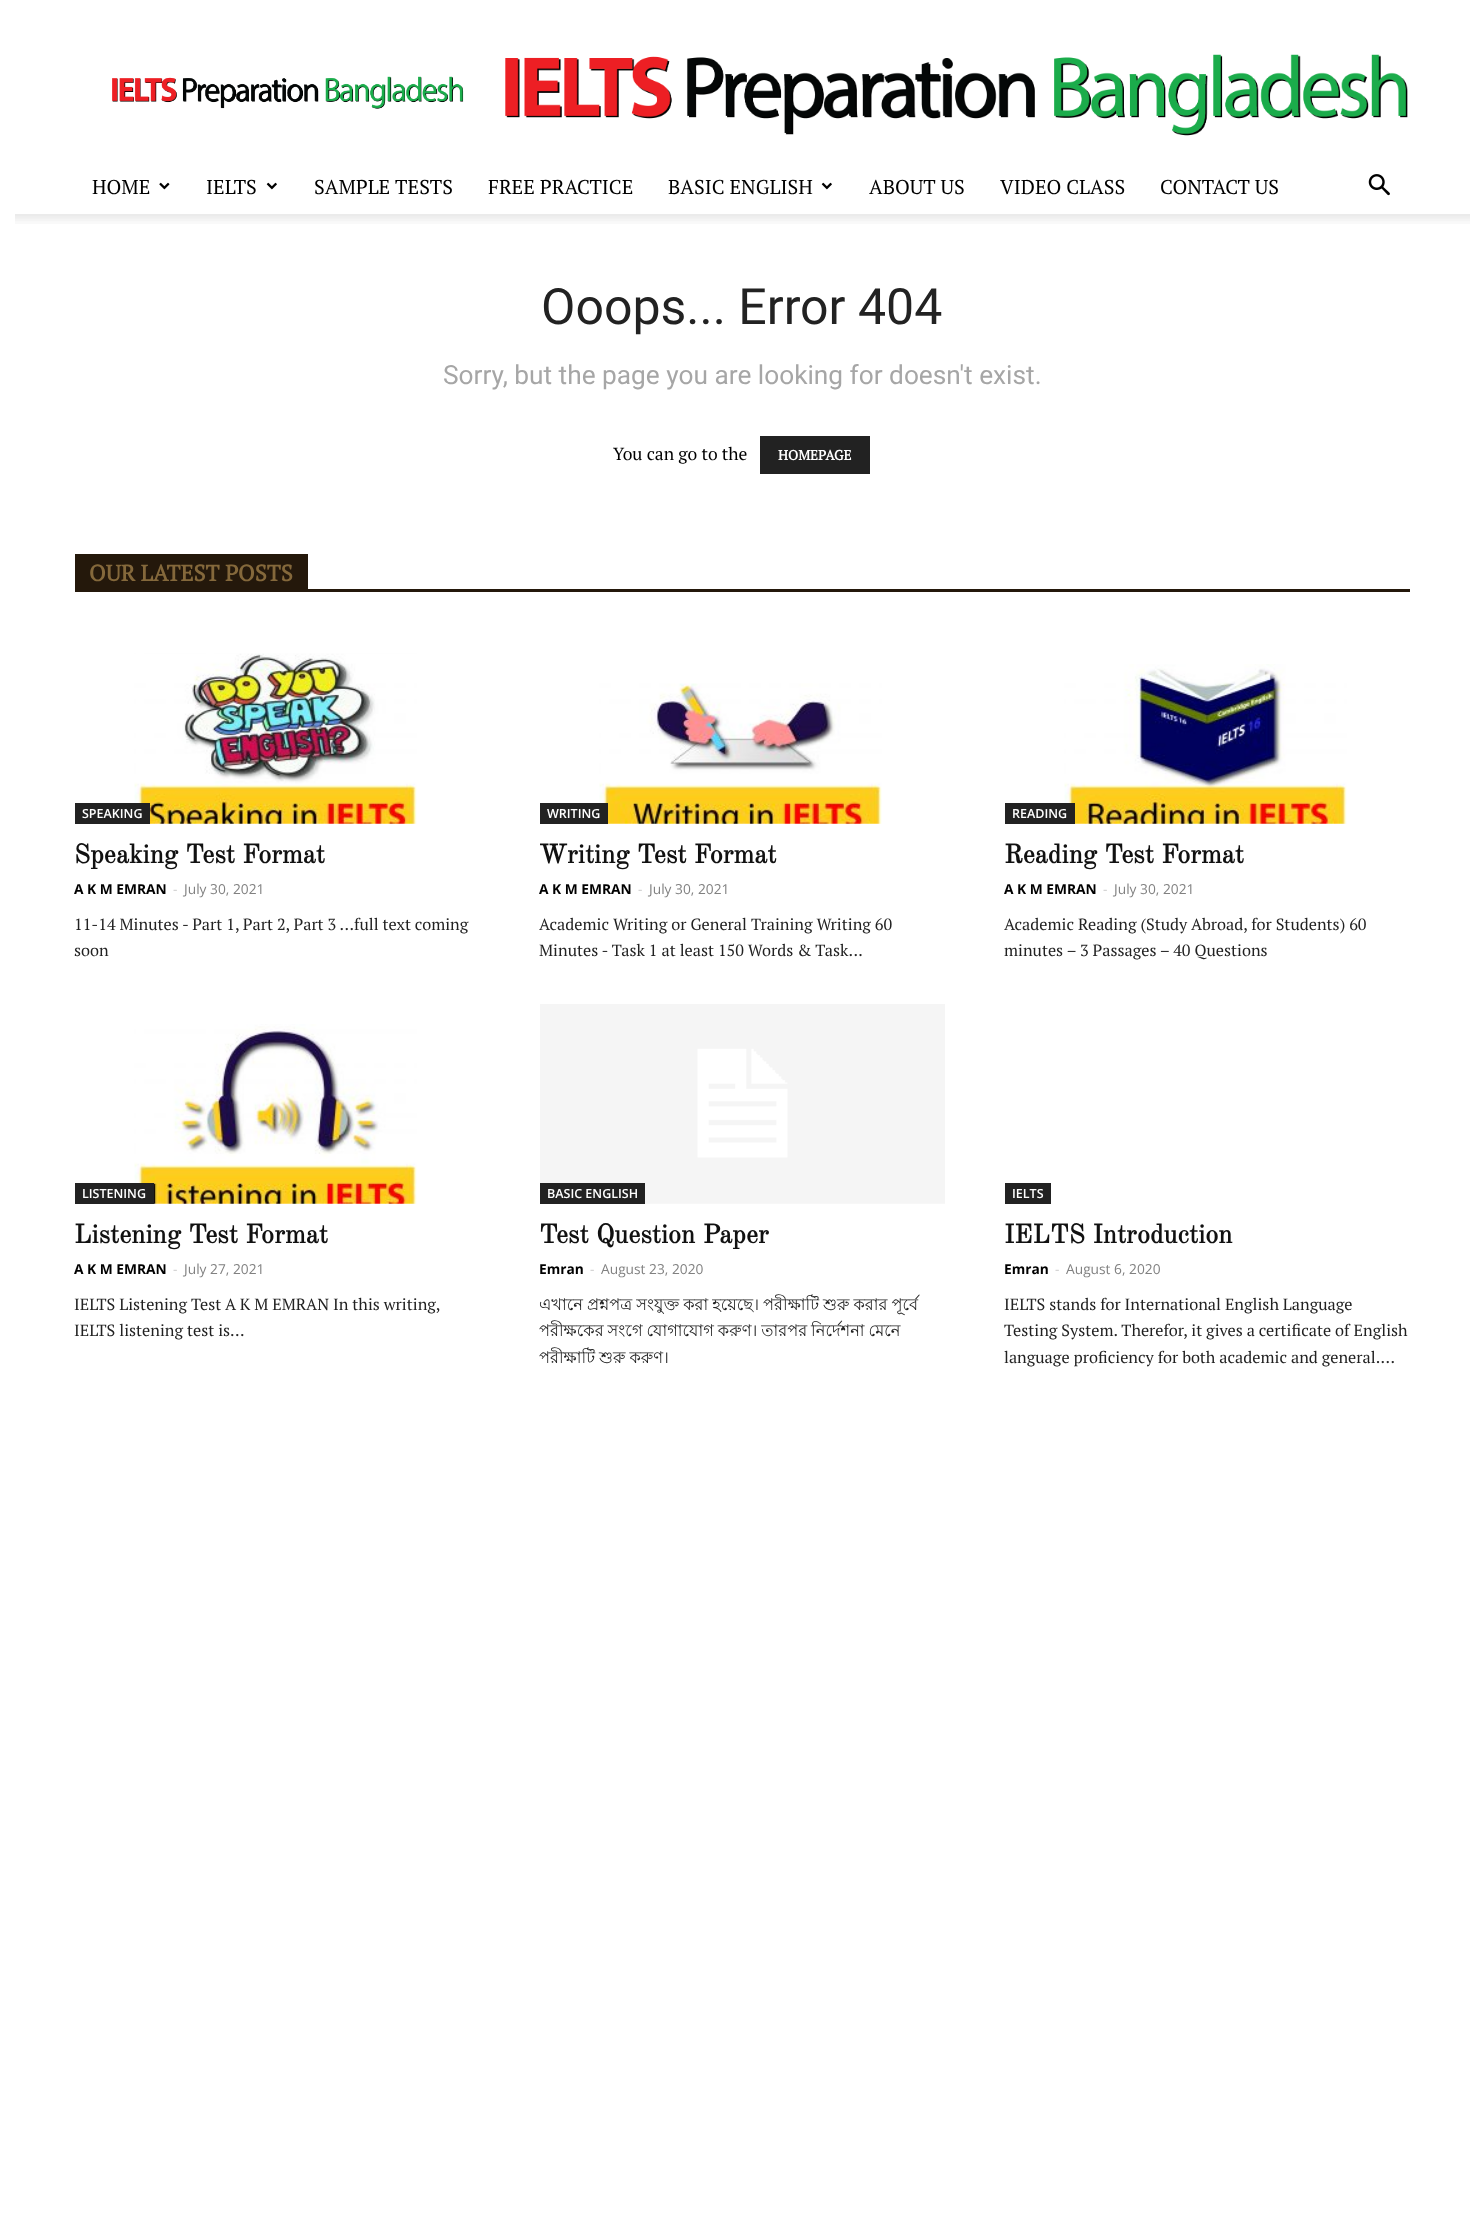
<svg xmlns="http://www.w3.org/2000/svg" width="1483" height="2227">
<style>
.a{font:20px PT Serif;fill:#000}
.b{font:50px Roboto;fill:#222}
.c{font:26.25px Roboto;fill:#a6a6a6}
.d{font:17.5px PT Serif;fill:#000}
.e{font:bold 13.75px PT Serif;fill:#fff}
.f{font:bold 22.5px PT Serif;fill:#84683b}
.g{font:600 12.5px Open Sans;fill:#fff}
.h{font:bold 26.25px Old Standard TT;fill:#111}
.i{font:bold 13.75px Open Sans;fill:#000}
.j{font:13.75px Open Sans;fill:#ccc}
.k{font:13.75px Open Sans;fill:#818181}
.l{font:16.25px PT Serif;fill:#222}
.m{font:16.25px Lohit Bengali;fill:#222}
</style>
<rect width="100%" height="100%" fill="#fff"/>
<image href="1.png" x="112" y="76" width="352" height="33"/>
<image href="2.png" x="505" y="54" width="903" height="82"/>
<image href="3.png" x="159" y="182" width="11" height="8"/>
<image href="4.png" x="266" y="182" width="11" height="8"/>
<image href="4.png" x="821" y="182" width="11" height="8"/>
<image href="5.png" x="1368" y="174" width="22" height="22"/>
<image href="6.png" x="15" y="214" width="1455" height="10"/>
<path fill="#222" d="M760 436h110v38H760z"/>
<path fill="#24180b" d="M75 589h1335v3H75z"/>
<path fill="#24180b" d="M75 554h233v35H75z"/>
<image href="7.png" x="134" y="653" width="283" height="171"/>
<path fill="#222" d="M75 803h75v21H75z"/>
<image href="8.png" x="599" y="683" width="283" height="141"/>
<path fill="#222" d="M540 803h68v21H540z"/>
<image href="9.png" x="1064" y="664" width="283" height="160"/>
<path fill="#222" d="M1005 803h70v21H1005z"/>
<image href="10.png" x="134" y="1024" width="283" height="180"/>
<path fill="#222" d="M75 1183h79v21H75z"/>
<image href="11.png" x="540" y="1004" width="405" height="200"/>
<path fill="#222" d="M540 1183h105v21H540z"/>
<path fill="#222" d="M1005 1183h46v21H1005z"/>
<text class="a" x="92" y="194">HOME</text>
<text class="a" x="206" y="194">IELTS</text>
<text class="a" x="314" y="194">SAMPLE TESTS</text>
<text class="a" x="488" y="194">FREE PRACTICE</text>
<text class="a" x="668" y="194">BASIC ENGLISH</text>
<text class="a" x="869" y="194">ABOUT US</text>
<text class="a" x="1000" y="194">VIDEO CLASS</text>
<text class="a" x="1160" y="194">CONTACT US</text>
<text class="b" x="541" y="324">Ooops... Error 404</text>
<text class="c" x="443" y="384">Sorry, but the page you are looking for doesn't exist.</text>
<text class="d" x="613" y="460">You can go to the</text>
<text class="e" x="778" y="460">HOMEPAGE</text>
<text class="f" x="89" y="581">OUR LATEST POSTS</text>
<text class="g" x="82" y="818">SPEAKING</text>
<text class="h" x="74" y="863">Speaking Test Format</text>
<text class="i" x="74" y="894">A K M EMRAN</text>
<text class="j" x="173" y="894">-</text>
<text class="k" x="184" y="894">July 30, 2021</text>
<text class="l" x="74" y="930">11-14 Minutes - Part 1, Part 2, Part 3 ...full text coming</text>
<text class="l" x="74" y="956">soon</text>
<text class="g" x="547" y="818">WRITING</text>
<text class="h" x="539" y="863">Writing Test Format</text>
<text class="i" x="539" y="894">A K M EMRAN</text>
<text class="j" x="638" y="894">-</text>
<text class="k" x="649" y="894">July 30, 2021</text>
<text class="l" x="539" y="930">Academic Writing or General Training Writing 60</text>
<text class="l" x="539" y="956">Minutes - Task 1 at least 150 Words &amp; Task...</text>
<text class="g" x="1012" y="818">READING</text>
<text class="h" x="1004" y="863">Reading Test Format</text>
<text class="i" x="1004" y="894">A K M EMRAN</text>
<text class="j" x="1103" y="894">-</text>
<text class="k" x="1114" y="894">July 30, 2021</text>
<text class="l" x="1004" y="930">Academic Reading (Study Abroad, for Students) 60</text>
<text class="l" x="1004" y="956">minutes – 3 Passages – 40 Questions</text>
<text class="g" x="82" y="1198">LISTENING</text>
<text class="h" x="74" y="1243">Listening Test Format</text>
<text class="i" x="74" y="1274">A K M EMRAN</text>
<text class="j" x="173" y="1274">-</text>
<text class="k" x="184" y="1274">July 27, 2021</text>
<text class="l" x="74" y="1310">IELTS Listening Test</text>
<text class="l" x="225" y="1310">A K M EMRAN</text>
<text class="l" x="333" y="1310">In this writing,</text>
<text class="l" x="74" y="1336">IELTS listening test is...</text>
<text class="g" x="547" y="1198">BASIC ENGLISH</text>
<text class="h" x="539" y="1243">Test Question Paper</text>
<text class="i" x="539" y="1274">Emran</text>
<text class="j" x="590" y="1274">-</text>
<text class="k" x="601" y="1274">August 23, 2020</text>
<text class="m" x="539" y="1310" word-spacing="-0.5">এখানে প্রশ্নপত্র সংযুক্ত করা হয়েছে। পরীক্ষাটি শুরু করার পূর্বে</text>
<text class="m" x="539" y="1336" word-spacing="-0.5">পরীক্ষকের সংগে যোগাযোগ করুণ। তারপর নির্দেশনা মেনে</text>
<text class="m" x="539" y="1363" word-spacing="-0.5">পরীক্ষাটি শুরু করুণ।</text>
<text class="g" x="1012" y="1198">IELTS</text>
<text class="h" x="1004" y="1243">IELTS Introduction</text>
<text class="i" x="1004" y="1274">Emran</text>
<text class="j" x="1055" y="1274">-</text>
<text class="k" x="1066" y="1274">August 6, 2020</text>
<text class="l" x="1004" y="1310">IELTS stands for International English Language</text>
<text class="l" x="1004" y="1336">Testing System. Therefor, it gives a certificate of English</text>
<text class="l" x="1004" y="1363">language proficiency for both academic and general....</text>
</svg>
